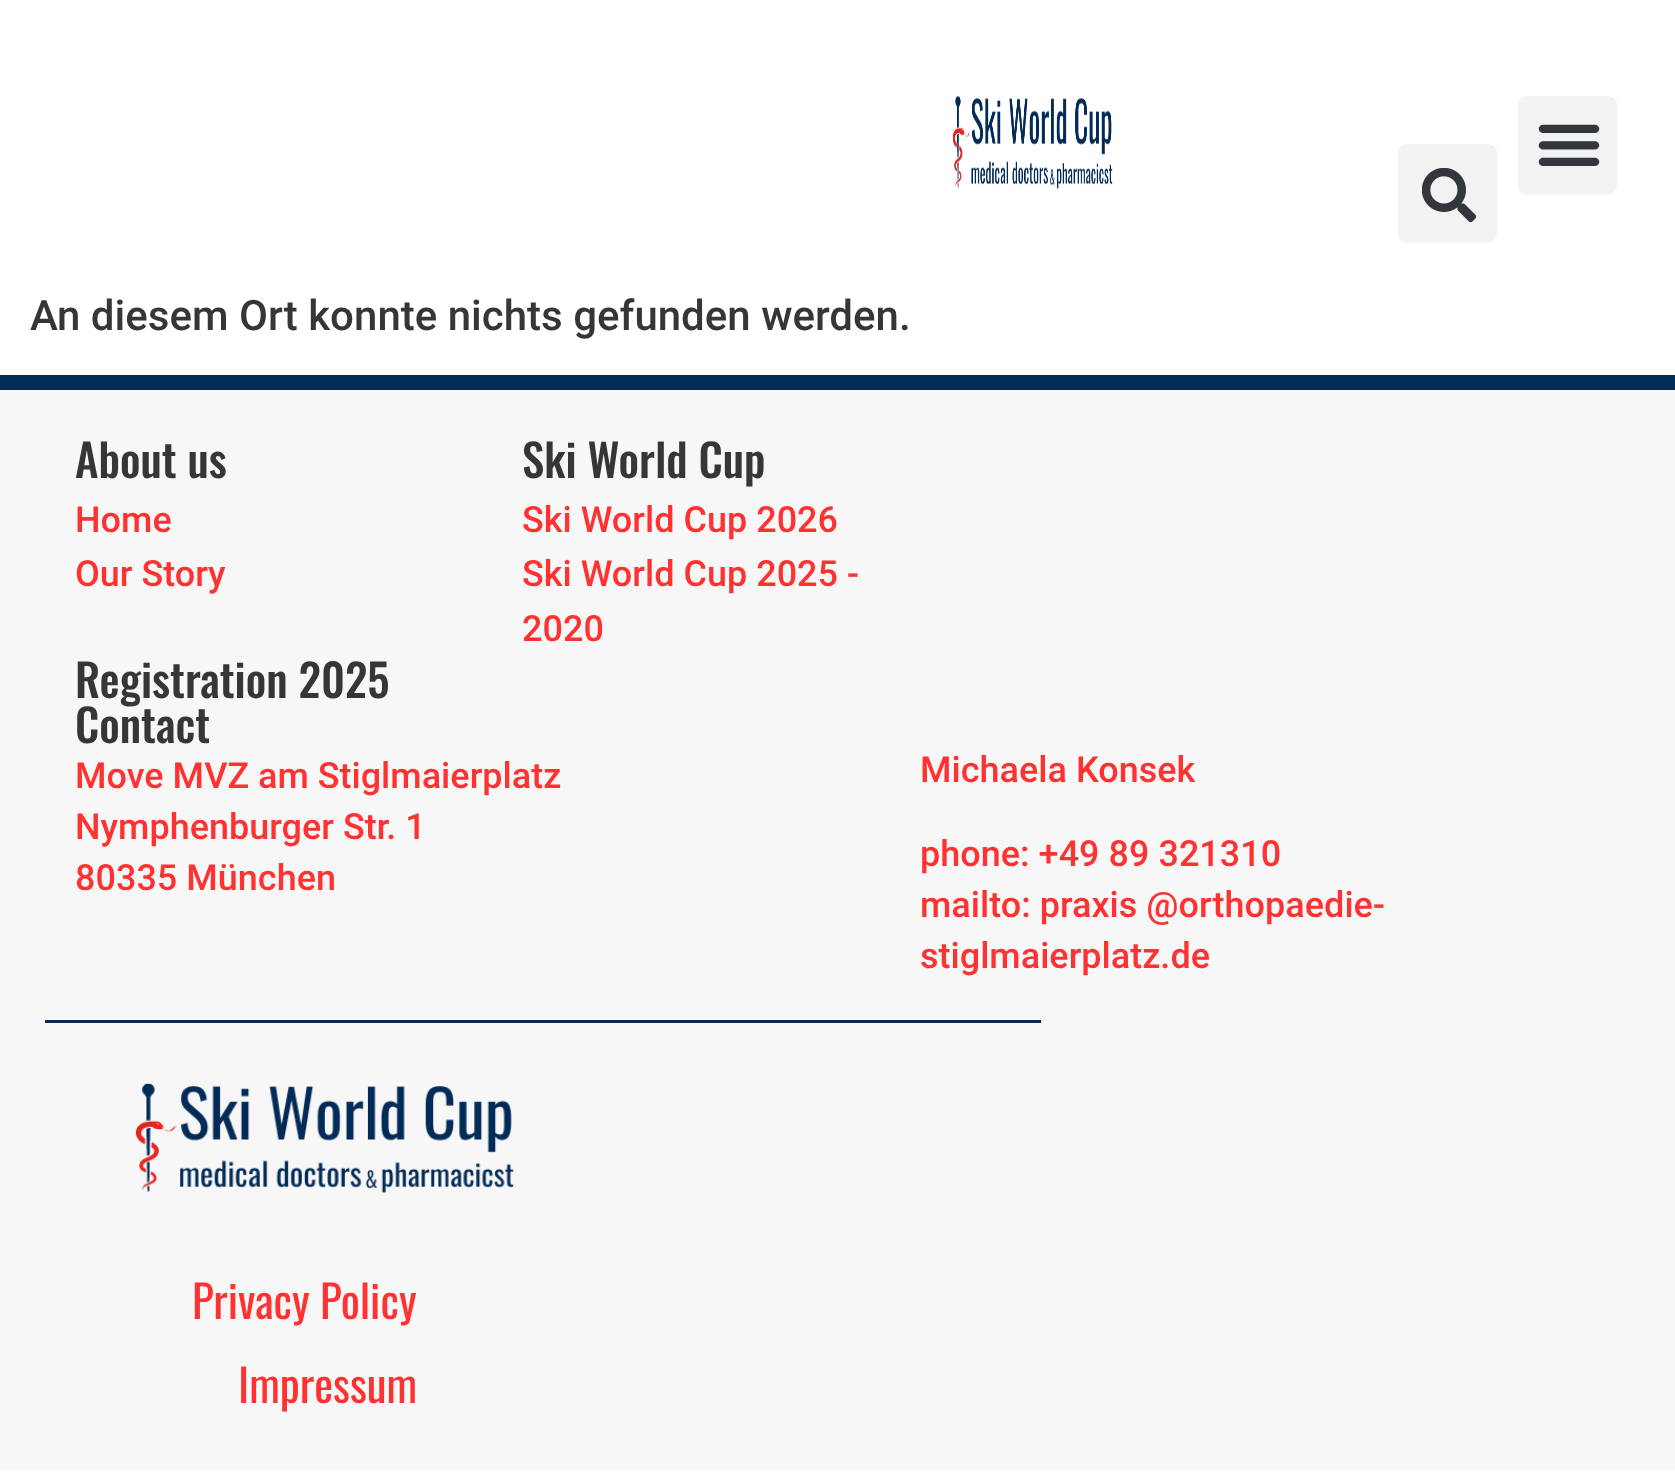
<svg xmlns="http://www.w3.org/2000/svg" width="1675" height="1484">
<style>
.a{font:500 42px Roboto;fill:#363636}
.b{font:500 45px Oswald;fill:#363636}
.c{font:500 36px Roboto;fill:#ff3131}
.d{font:45px Oswald;fill:#ff3131}
</style>
<rect width="100%" height="100%" fill="#fff"/>
<image href="1.png" x="953" y="96" width="160" height="93"/>
<rect fill="#f2f2f2" x="1398" y="144" width="99" height="99" rx="9"/>
<image href="2.png" x="1422" y="168" width="54" height="54"/>
<rect fill="#f2f2f2" x="1518" y="96" width="99" height="99" rx="9"/>
<image href="3.png" x="1538" y="124" width="62" height="42"/>
<path fill="#f7f7f7" d="M0 390h1675v1080H0z"/>
<path fill="#032b57" d="M0 375h1675v15H0z"/>
<path fill="#032b57" d="M45 1020h996v3H45z"/>
<image href="4.png" x="135" y="1083" width="379" height="110"/>
<text class="a" x="30" y="330">An diesem Ort konnte nichts gefunden werden.</text>
<text class="b" x="75" y="478">About us</text>
<text class="c" x="75" y="532">Home</text>
<text class="c" x="75" y="586">Our Story</text>
<text class="b" x="522" y="478">Ski World Cup</text>
<text class="c" x="522" y="532">Ski World Cup 2026</text>
<text class="c" x="522" y="586">Ski World Cup 2025 -</text>
<text class="c" x="522" y="641">2020</text>
<text class="b" x="75" y="698">Registration 2025</text>
<text class="b" x="75" y="743">Contact</text>
<text class="c" x="75" y="788">Move MVZ am Stiglmaierplatz</text>
<text class="c" x="75" y="839">Nymphenburger Str. 1</text>
<text class="c" x="75" y="890">80335 München</text>
<text class="c" x="920" y="782">Michaela Konsek</text>
<text class="c" x="920" y="866">phone: +49 89 321310</text>
<text class="c" x="920" y="917">mailto: praxis @orthopaedie-</text>
<text class="c" x="920" y="968">stiglmaierplatz.de</text>
<text class="d" x="192" y="1319">Privacy Policy</text>
<text class="d" x="238" y="1403">Impressum</text>
</svg>
